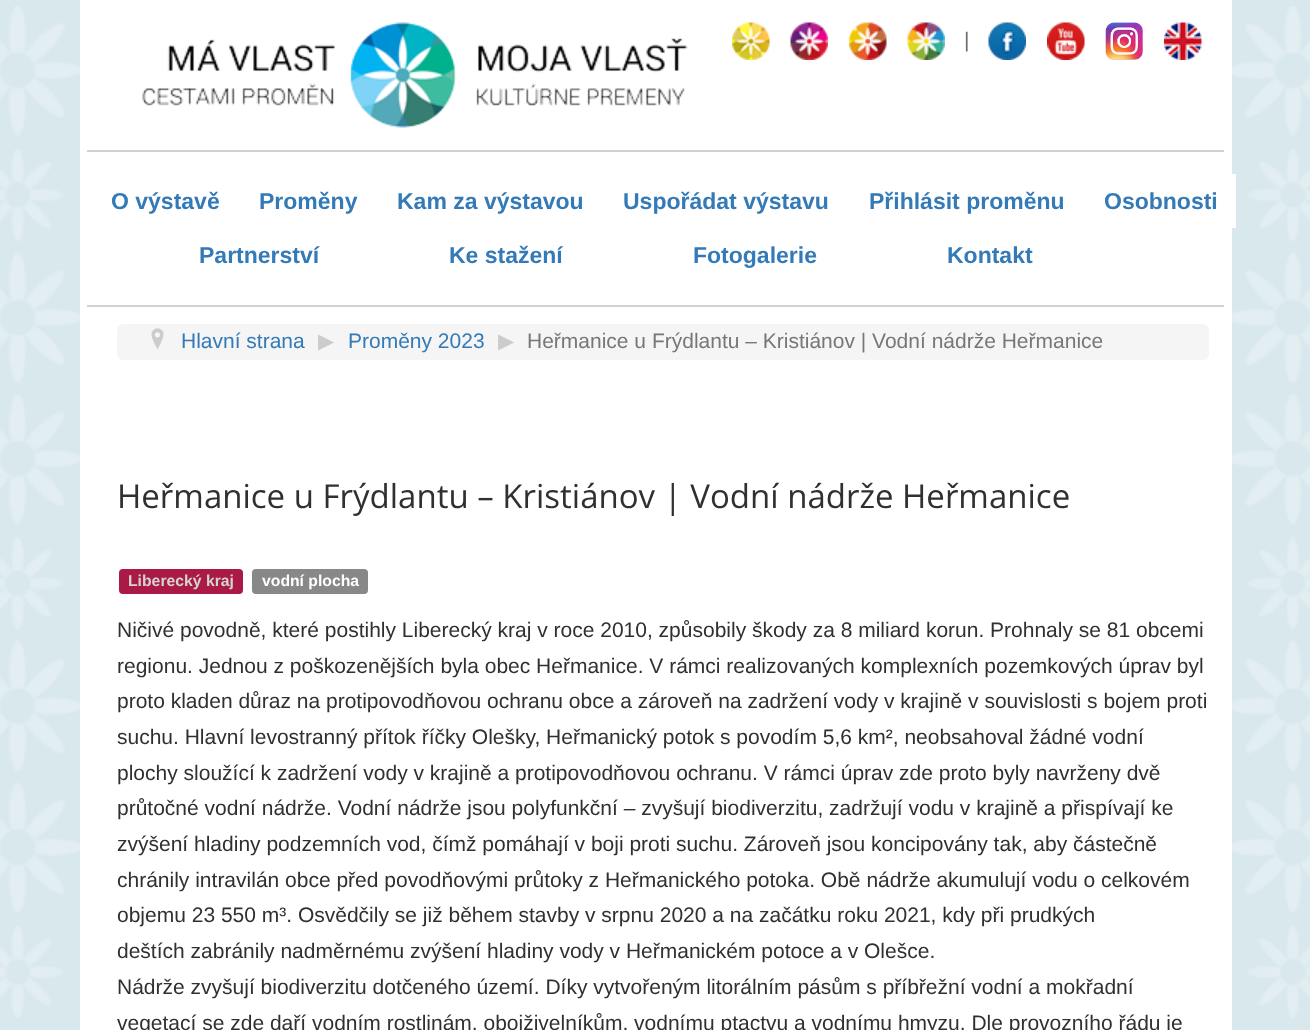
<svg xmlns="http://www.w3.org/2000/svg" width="1310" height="1030">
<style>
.a{font:21px Liberation Sans;fill:#6e6e6e}
.b{font:bold 23px Liberation Sans;fill:#337ab7}
.c{font:21px Liberation Sans;fill:#337ab7}
.d{font:21px DejaVu Sans;fill:#ccc}
.e{font:21px Liberation Sans;fill:#777}
.f{font:33px Open Sans;fill:#303030}
.g{font:bold 15.75px Liberation Sans;fill:#d2d5d2}
.h{font:bold 15.75px Liberation Sans;fill:#fff}
.i{font:21px Liberation Sans;fill:#303030}
</style>
<rect width="100%" height="100%" fill="#d8e8ed"/>
<image href="1.png" x="0" y="6" width="1310" height="1024"/>
<path fill="#fff" d="M80 0h1152v1030H80z"/>
<image href="2.png" x="142" y="22" width="546" height="106"/>
<image href="3.png" x="732" y="22" width="38" height="38"/>
<image href="4.png" x="790" y="22" width="38" height="38"/>
<image href="5.png" x="849" y="22" width="38" height="38"/>
<image href="6.png" x="907" y="22" width="38" height="38"/>
<image href="7.png" x="988" y="22" width="38" height="38"/>
<image href="8.png" x="1047" y="22" width="38" height="38"/>
<image href="9.png" x="1105" y="22" width="38" height="38"/>
<image href="10.png" x="1164" y="22" width="38" height="38"/>
<path fill="#d1d1d1" d="M87 150h1137v2H87z"/>
<path fill="#d1d1d1" d="M87 305h1137v2H87z"/>
<path fill="#fff" d="M1232 174h4v54H1232z"/>
<rect fill="#f5f5f5" x="117" y="324" width="1092" height="36" rx="6"/>
<image href="11.png" x="151" y="328" width="13" height="21"/>
<rect fill="#ab1a47" x="119" y="569" width="124" height="25" rx="4"/>
<rect fill="#888" x="252" y="569" width="116" height="25" rx="4"/>
<text class="a" x="964" y="47">|</text>
<text class="b" x="111" y="209">O výstavě</text>
<text class="b" x="259" y="209">Proměny</text>
<text class="b" x="397" y="209">Kam za výstavou</text>
<text class="b" x="623" y="209">Uspořádat výstavu</text>
<text class="b" x="869" y="209">Přihlásit proměnu</text>
<text class="b" x="1104" y="209">Osobnosti</text>
<text class="b" x="199" y="263">Partnerství</text>
<text class="b" x="449" y="263">Ke stažení</text>
<text class="b" x="693" y="263">Fotogalerie</text>
<text class="b" x="947" y="263">Kontakt</text>
<text class="c" x="181" y="348">Hlavní strana</text>
<text class="d" x="318" y="348">▶</text>
<text class="c" x="348" y="348">Proměny 2023</text>
<text class="d" x="498" y="348">▶</text>
<text class="e" x="527" y="348">Heřmanice u Frýdlantu – Kristiánov | Vodní nádrže Heřmanice</text>
<text class="f" x="117" y="508">Heřmanice u Frýdlantu – Kristiánov | Vodní nádrže Heřmanice</text>
<text class="g" x="128" y="586">Liberecký kraj</text>
<text class="h" x="262" y="586">vodní plocha</text>
<text class="i" x="117" y="637">Ničivé povodně, které postihly Liberecký kraj v roce 2010, způsobily škody za 8 miliard korun. Prohnaly se 81 obcemi</text>
<text class="i" x="117" y="673">regionu. Jednou z poškozenějších byla obec Heřmanice. V rámci realizovaných komplexních pozemkových úprav byl</text>
<text class="i" x="117" y="708">proto kladen důraz na protipovodňovou ochranu obce a zároveň na zadržení vody v krajině v souvislosti s bojem proti</text>
<text class="i" x="117" y="744">suchu. Hlavní levostranný přítok říčky Olešky, Heřmanický potok s povodím 5,6 km², neobsahoval žádné vodní</text>
<text class="i" x="117" y="780">plochy sloužící k zadržení vody v krajině a protipovodňovou ochranu. V rámci úprav zde proto byly navrženy dvě</text>
<text class="i" x="117" y="815">průtočné vodní nádrže. Vodní nádrže jsou polyfunkční – zvyšují biodiverzitu, zadržují vodu v krajině a přispívají ke</text>
<text class="i" x="117" y="851">zvýšení hladiny podzemních vod, čímž pomáhají v boji proti suchu. Zároveň jsou koncipovány tak, aby částečně</text>
<text class="i" x="117" y="887">chránily intravilán obce před povodňovými průtoky z Heřmanického potoka. Obě nádrže akumulují vodu o celkovém</text>
<text class="i" x="117" y="922">objemu 23 550 m³. Osvědčily se již během stavby v srpnu 2020 a na začátku roku 2021, kdy při prudkých</text>
<text class="i" x="117" y="958">deštích zabránily nadměrnému zvýšení hladiny vody v Heřmanickém potoce a v Olešce.</text>
<text class="i" x="117" y="994">Nádrže zvyšují biodiverzitu dotčeného území. Díky vytvořeným litorálním pásům s příbřežní vodní a mokřadní</text>
<text class="i" x="117" y="1030">vegetací se zde daří vodním rostlinám, obojživelníkům, vodnímu ptactvu a vodnímu hmyzu. Dle provozního řádu je</text>
</svg>
